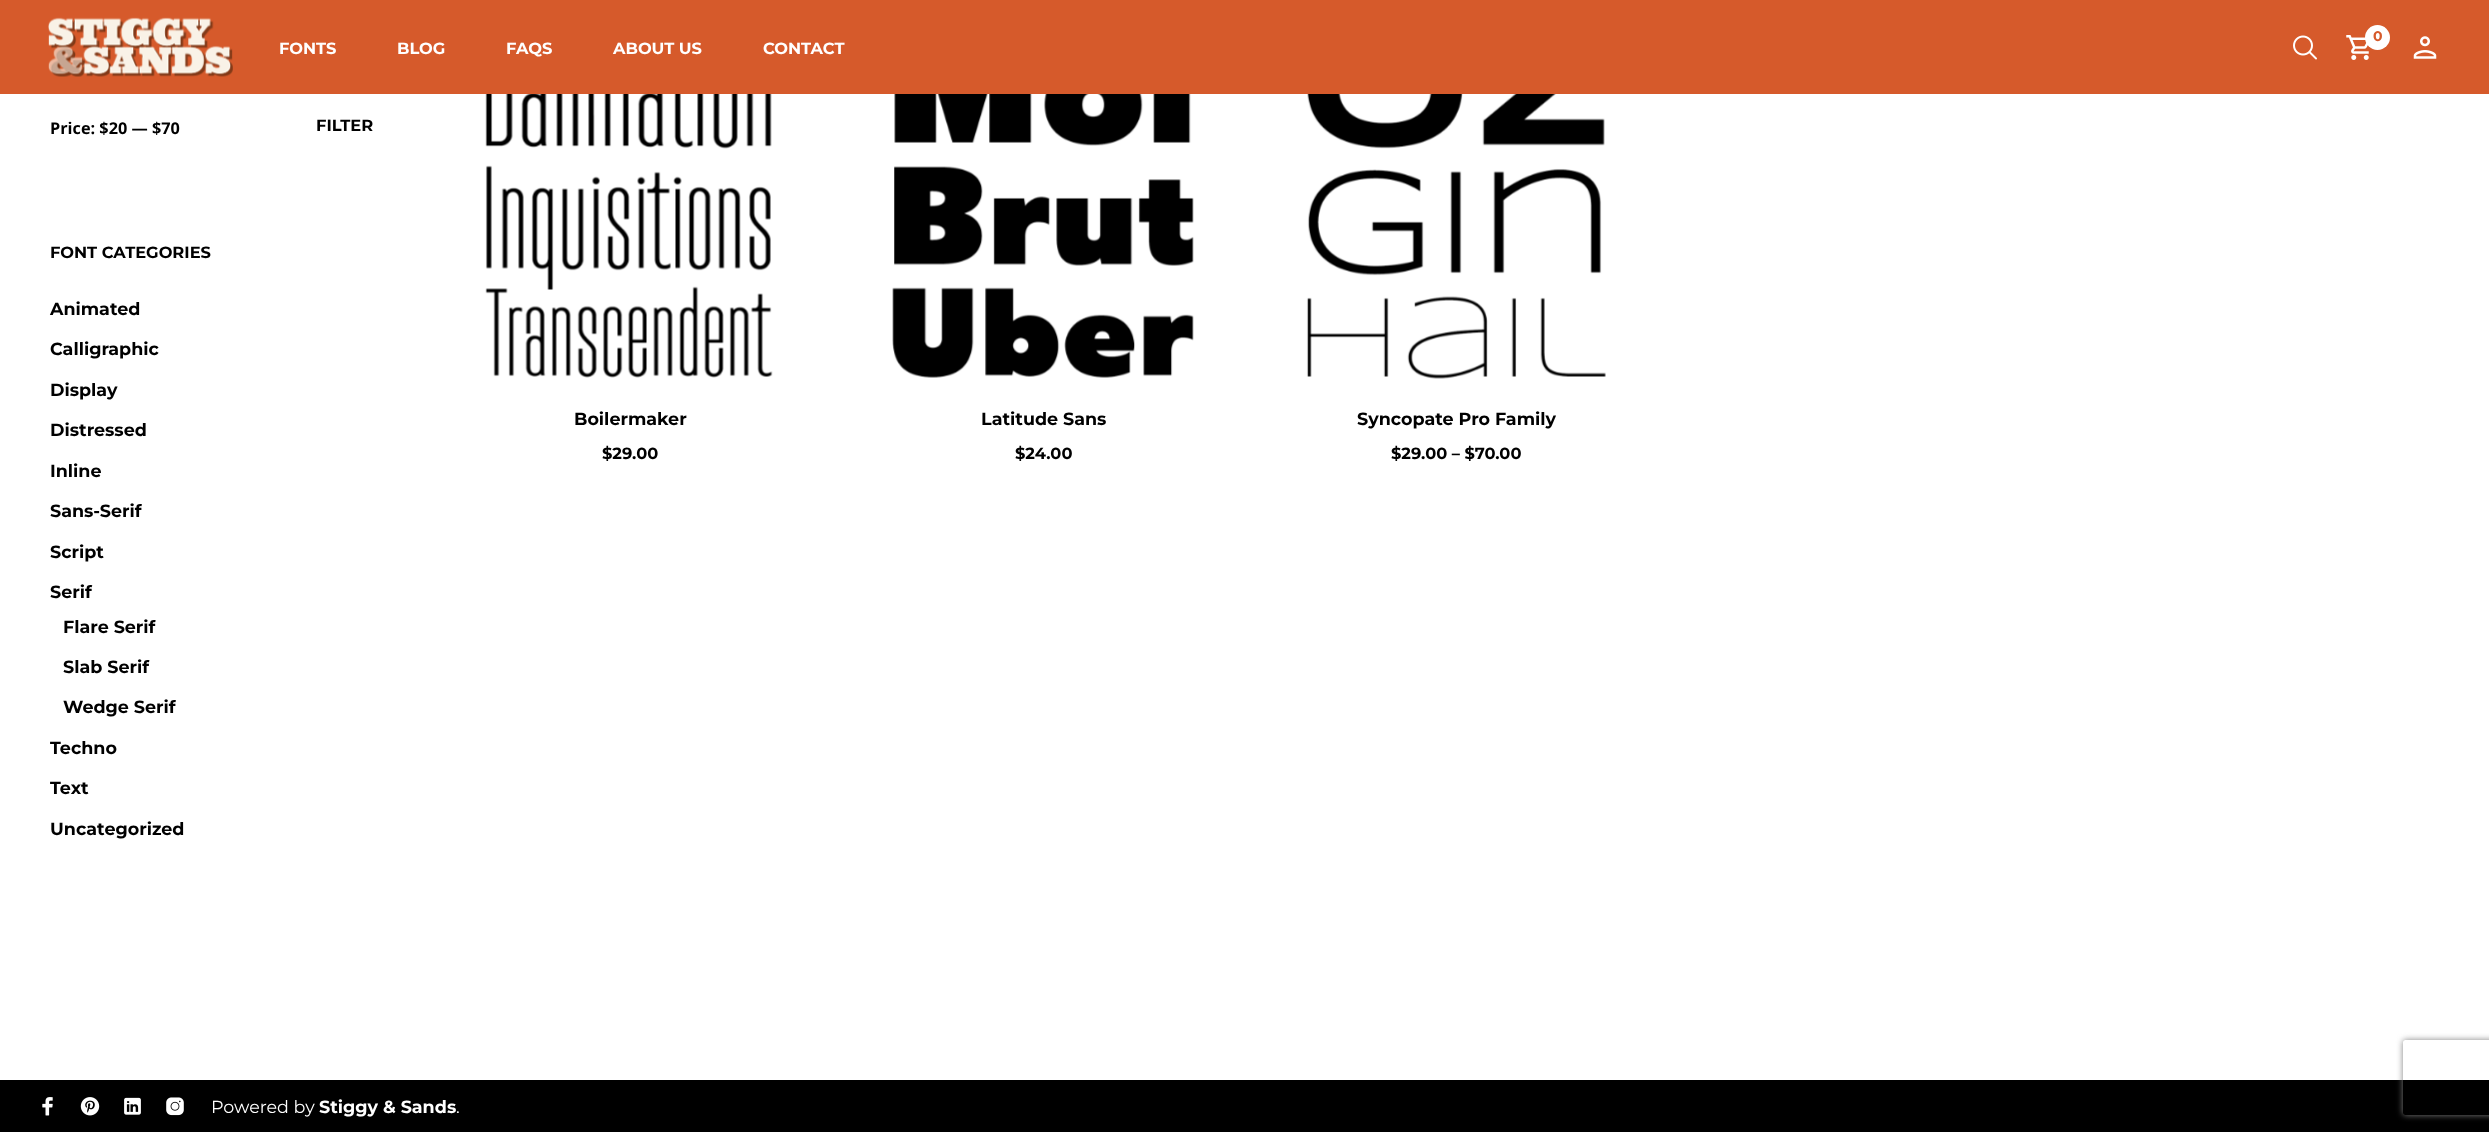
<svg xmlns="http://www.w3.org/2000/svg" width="2489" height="1132">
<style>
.a{font:bold 14px Montserrat;fill:#d65a2b}
.b{font:bold 16.25px Montserrat;fill:#fff}
.c{font:bold 16.25px Open Sans;fill:#000}
.d{font:bold 16.25px Montserrat;fill:#000}
.e{font:bold 17.5px Montserrat;fill:#000}
.f{font:17.5px Montserrat;fill:#fff}
.g{font:bold 17.5px Montserrat;fill:#fff}
</style>
<defs>
<clipPath id="clip1"><path d="M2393 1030h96v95h-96zm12.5 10h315c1.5 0 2.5 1 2.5 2.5v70c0 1.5-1 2.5-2.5 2.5h-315c-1.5 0-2.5-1-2.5-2.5v-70c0-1.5 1-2.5 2.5-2.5z" clip-rule="evenodd"/></clipPath>
</defs>
<rect width="100%" height="100%" fill="#fff"/>
<path fill="#d65a2b" d="M0 0h2489v94H0z"/>
<image href="1.png" x="48" y="17" width="185" height="60"/>
<image href="2.png" x="2293" y="35" width="24" height="25"/>
<image href="3.png" x="2346" y="35" width="23" height="25"/>
<circle fill="#fff" cx="2377.5" cy="37.5" r="12.5"/>
<image href="4.png" x="2413" y="36" width="24" height="23"/>
<image href="5.png" x="485" y="94" width="288" height="284"/>
<image href="6.png" x="892" y="94" width="302" height="284"/>
<image href="7.png" x="1306" y="94" width="300" height="285"/>
<path fill="#000" d="M0 1080h2489v52H0z"/>
<image href="8.png" x="42" y="1097" width="11" height="19"/>
<image href="9.png" x="80" y="1097" width="20" height="19"/>
<image href="10.png" x="124" y="1097" width="17" height="18"/>
<image href="11.png" x="166" y="1097" width="18" height="19"/>
<g clip-path="url(#clip1)">
<rect fill="#808080" filter="blur(3px)" x="2403" y="1040" width="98" height="75" rx="2.5"/>
</g>
<text class="a" x="2373" y="41">0</text>
<text class="b" x="279" y="54">FONTS</text>
<text class="b" x="397" y="54">BLOG</text>
<text class="b" x="506" y="54">FAQS</text>
<text class="b" x="613" y="54">ABOUT US</text>
<text class="b" x="763" y="54">CONTACT</text>
<text class="c" x="50" y="134">Price: $20 — $70</text>
<text class="d" x="316" y="131">FILTER</text>
<text class="d" x="50" y="258">FONT CATEGORIES</text>
<text class="e" x="50" y="315">Animated</text>
<text class="e" x="50" y="355">Calligraphic</text>
<text class="e" x="50" y="396">Display</text>
<text class="e" x="50" y="436">Distressed</text>
<text class="e" x="50" y="477">Inline</text>
<text class="e" x="50" y="517">Sans-Serif</text>
<text class="e" x="50" y="558">Script</text>
<text class="e" x="50" y="598">Serif</text>
<text class="e" x="63" y="633">Flare Serif</text>
<text class="e" x="63" y="673">Slab Serif</text>
<text class="e" x="63" y="713">Wedge Serif</text>
<text class="e" x="50" y="754">Techno</text>
<text class="e" x="50" y="794">Text</text>
<text class="e" x="50" y="835">Uncategorized</text>
<text class="e" x="574" y="425">Boilermaker</text>
<text class="d" x="602" y="459">$29.00</text>
<text class="e" x="981" y="425">Latitude Sans</text>
<text class="d" x="1015" y="459">$24.00</text>
<text class="e" x="1357" y="425">Syncopate Pro Family</text>
<text class="d" x="1391" y="459">$29.00 – $70.00</text>
<text class="f" x="211" y="1113">Powered by</text>
<text class="g" x="319" y="1113">Stiggy &amp; Sands</text>
<text class="f" x="456" y="1113">.</text>
</svg>
